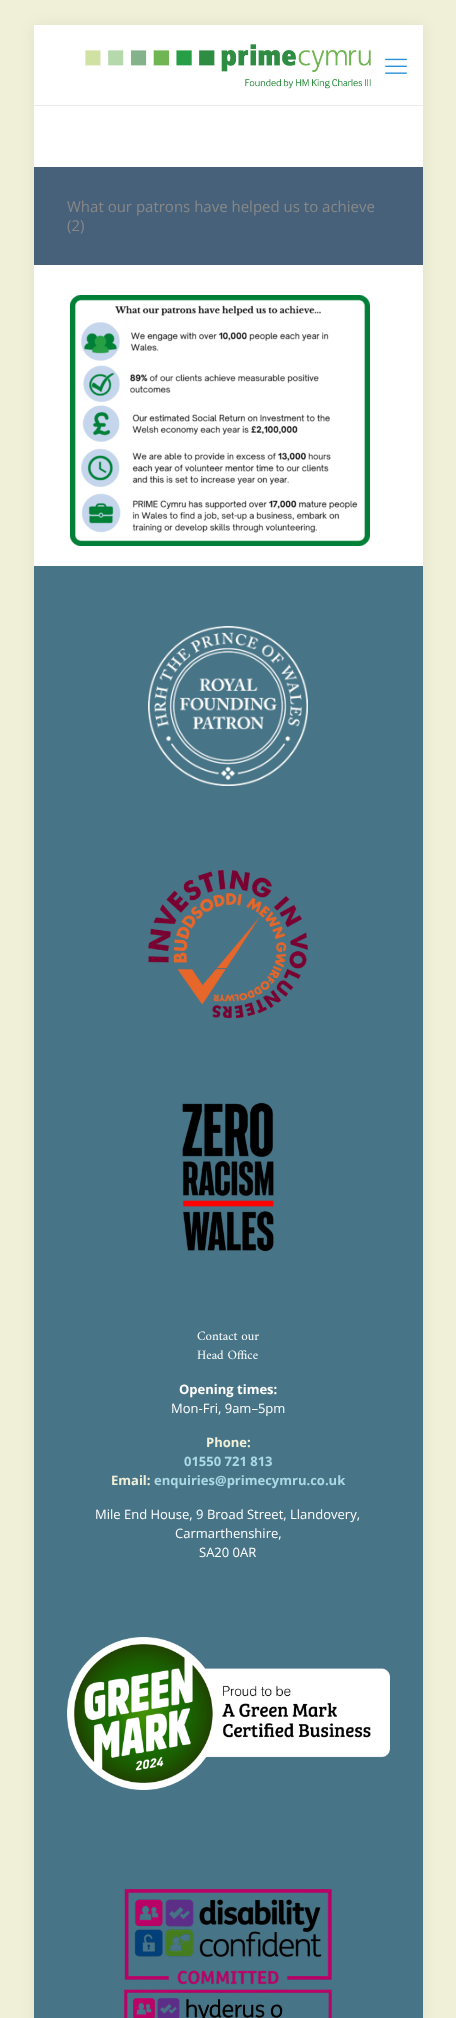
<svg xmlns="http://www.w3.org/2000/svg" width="456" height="2018">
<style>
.a{font:15px Open Sans;fill:#888}
.b{font:13px Amiri;fill:#fff}
.c{font:bold 13px Open Sans;fill:#fff}
.d{font:13px Open Sans;fill:#fff}
.e{font:bold 13px Open Sans;fill:#f0f0d8}
.f{font:bold 13px Open Sans;fill:#add8e6}
</style>
<rect width="100%" height="100%" fill="#f0f0d8"/>
<path fill="#0000000f" filter="blur(7.5px)" d="M34 25h389v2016H34z"/>
<path fill="#47617a" d="M34 167h389v98H34z"/>
<path fill="#fff" d="M34 25h389v142H34z"/>
<path fill="#ebebeb" d="M34 105h389v1H34z"/>
<image href="1.png" x="85" y="44" width="286" height="45"/>
<image href="2.png" x="385" y="58" width="22" height="16"/>
<path fill="#fff" d="M34 265h389v301H34z"/>
<image href="3.png" x="70" y="295" width="300" height="251"/>
<path fill="#477486" d="M34 566h389v1452H34z"/>
<image href="4.png" x="148" y="626" width="160" height="160"/>
<image href="5.png" x="148" y="870" width="160" height="149"/>
<image href="6.png" x="182" y="1102" width="92" height="150"/>
<image href="7.png" x="67" y="1637" width="323" height="153"/>
<image href="8.png" x="124" y="1889" width="208" height="129"/>
<text class="a" x="67" y="212">What our patrons have helped us to achieve</text>
<text class="a" x="67" y="231">(2)</text>
<text class="b" x="197" y="1340">Contact our</text>
<text class="b" x="197" y="1359">Head Office</text>
<text class="c" x="179" y="1394">Opening times:</text>
<text class="d" x="171" y="1413">Mon-Fri, 9am–5pm</text>
<text class="e" x="206" y="1447">Phone:</text>
<text class="f" x="184" y="1466">01550 721 813</text>
<text class="e" x="111" y="1485">Email:</text>
<text class="f" x="154" y="1485">enquiries@primecymru.co.uk</text>
<text class="d" x="95" y="1519">Mile End House, 9 Broad Street, Llandovery,</text>
<text class="d" x="175" y="1538">Carmarthenshire,</text>
<text class="d" x="199" y="1557">SA20 0AR</text>
</svg>
